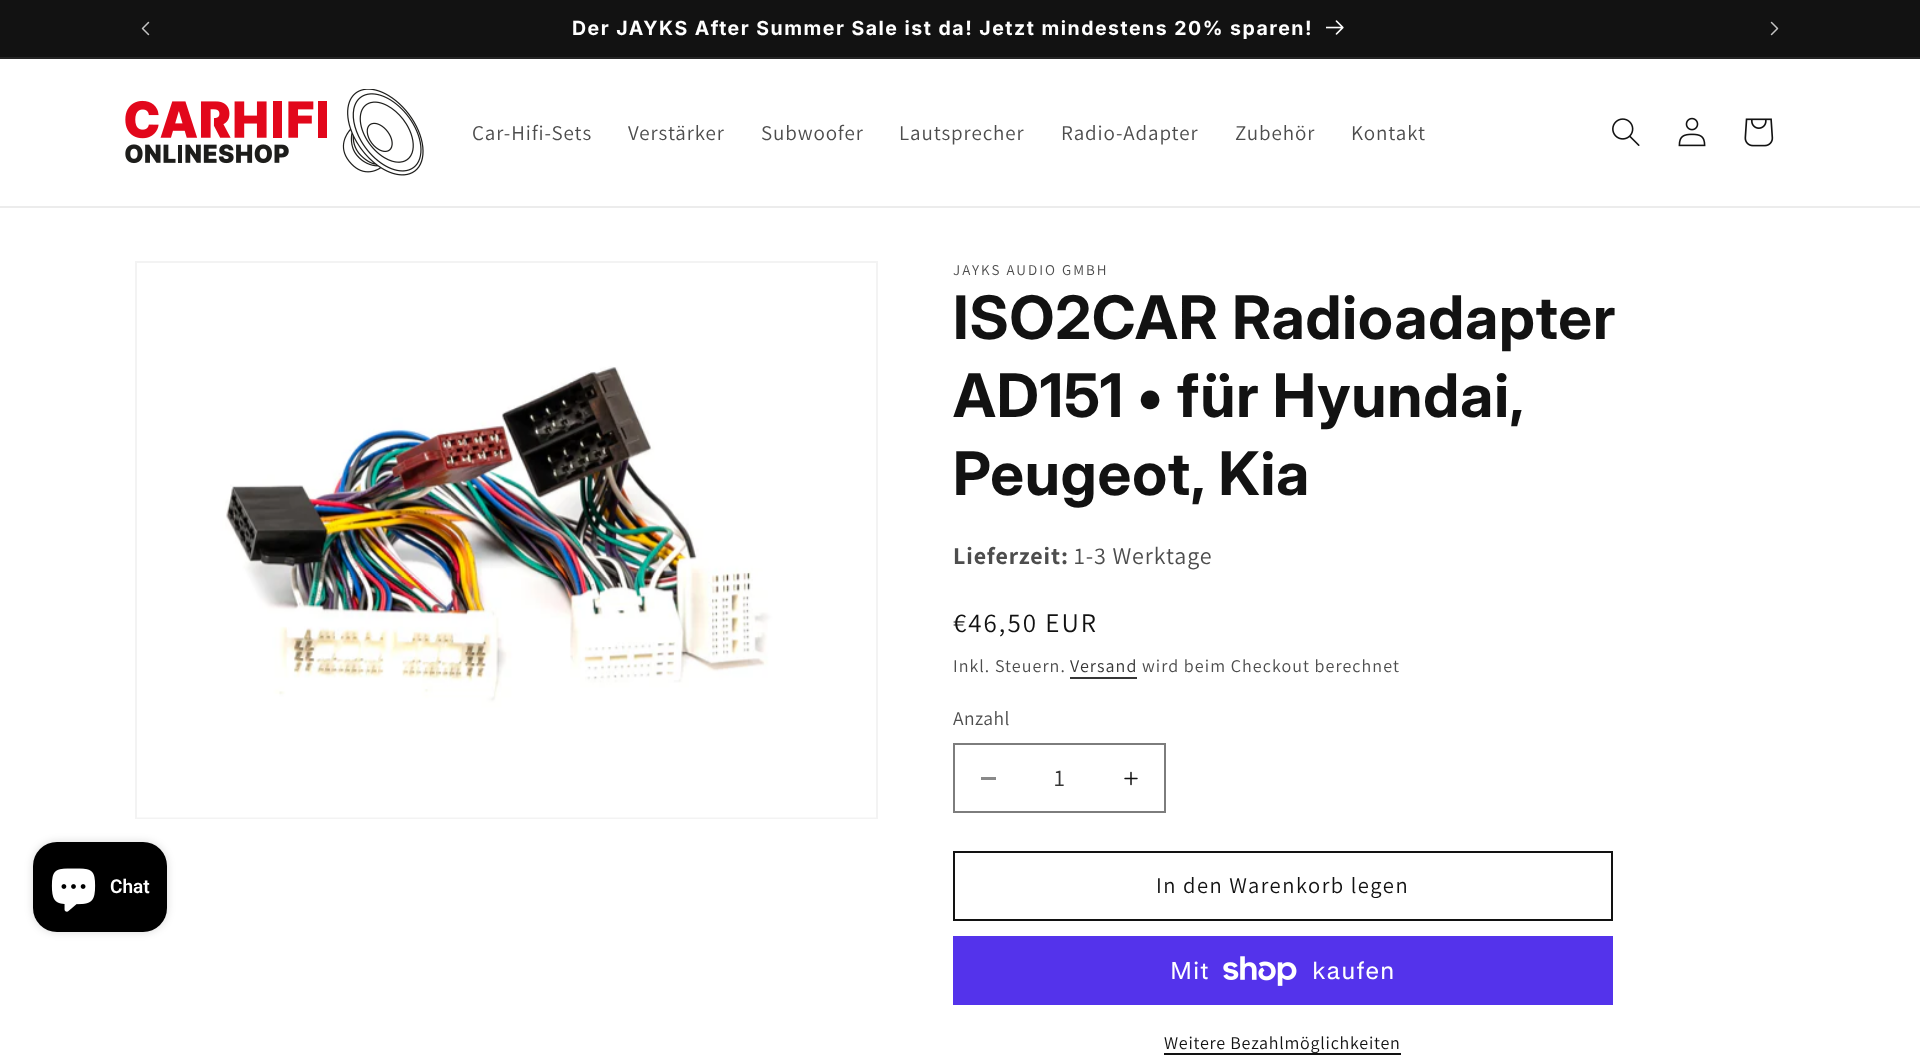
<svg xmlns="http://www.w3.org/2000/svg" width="1920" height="1059">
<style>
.a{font:bold 19.5px 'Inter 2';letter-spacing:1.5px;fill:#fff}
.b{font:21px Assistant;letter-spacing:0.9px;fill:#4d4d4d}
.c{font:600 19px Roboto;fill:#fff}
.d{font:15px Assistant;letter-spacing:2px;fill:#4d4d4d}
.e{font:bold 60px Inter;letter-spacing:0.9px;fill:#121212}
.f{font:bold 24px Assistant;letter-spacing:0.9px;fill:#4d4d4d}
.g{font:24px Assistant;letter-spacing:0.9px;fill:#4d4d4d}
.h{font:27px Assistant;letter-spacing:2px;fill:#121212}
.i{font:18px Assistant;letter-spacing:1.05px;fill:#4d4d4d}
.j{font:18px Assistant;letter-spacing:1.05px;fill:#363636}
.k{font:19.5px Assistant;letter-spacing:0.5px;fill:#4d4d4d}
.l{font:24px Assistant;fill:#363636}
.m{font:22.5px Assistant;letter-spacing:1.5px;fill:#121212}
.n{font:24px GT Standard;letter-spacing:0.9px;fill:#fff}
.o{font:18px Assistant;letter-spacing:0.75px;fill:#121212}
</style>
<rect width="100%" height="100%" fill="#fff"/>
<path fill="#121212" d="M0 0h1920v57H0z"/>
<path fill="#252525" d="M0 57h1920v2H0z"/>
<image href="1.png" x="141" y="21" width="9" height="15"/>
<image href="2.png" x="1326" y="20" width="18" height="15"/>
<image href="3.png" x="1770" y="21" width="9" height="15"/>
<path fill="#ececec" d="M0 206h1920v2H0z"/>
<image href="4.png" x="125" y="89" width="299" height="87"/>
<image href="5.png" x="1612" y="118" width="28" height="28"/>
<image href="6.png" x="1678" y="117" width="28" height="30"/>
<image href="7.png" x="1744" y="118" width="30" height="29"/>
<rect fill="#00000026" filter="blur(4px)" x="33" y="842" width="134" height="90" rx="24"/>
<rect fill="#000" x="33" y="842" width="134" height="90" rx="24"/>
<image href="8.png" x="51" y="868" width="45" height="44"/>
<path fill="none" stroke="#f3f3f3" stroke-width="2" d="M136 262h741v556H136z"/>
<image href="9.png" x="137" y="366" width="739" height="452"/>
<path fill="#363636" d="M1070 677h67v2H1070z"/>
<path fill="#898989" d="M981 777h15v3H981z"/>
<image href="10.png" x="1124" y="771" width="14" height="15"/>
<path fill="none" stroke="#7d7d7d" stroke-width="2" d="M954 744h211v68H954z"/>
<path fill="none" stroke="#121212" stroke-width="2" d="M954 852h658v68H954z"/>
<path fill="#5433eb" d="M953 936h660v69H953z"/>
<image href="11.png" x="1223" y="956" width="74" height="30"/>
<path fill="#121212" d="M1164 1053h237v2H1164z"/>
<text class="a" x="572" y="35">Der JAYKS After Summer Sale ist da! Jetzt mindestens 20% sparen!</text>
<text class="b" x="472" y="140">Car-Hifi-Sets</text>
<text class="b" x="628" y="140">Verstärker</text>
<text class="b" x="761" y="140">Subwoofer</text>
<text class="b" x="899" y="140">Lautsprecher</text>
<text class="b" x="1061" y="140">Radio-Adapter</text>
<text class="b" x="1235" y="140">Zubehör</text>
<text class="b" x="1351" y="140">Kontakt</text>
<text class="c" x="110" y="893">Chat</text>
<text class="d" x="953" y="275">JAYKS AUDIO GMBH</text>
<text class="e" x="953" y="339">ISO2CAR Radioadapter</text>
<text class="e" x="953" y="417" word-spacing="-0.5">AD151 • für Hyundai,</text>
<text class="e" x="953" y="495">Peugeot, Kia</text>
<text class="f" x="953" y="564">Lieferzeit:</text>
<text class="g" x="1074" y="564">1-3 Werktage</text>
<text class="h" x="953" y="632">€46,50 EUR</text>
<text class="i" x="953" y="672">Inkl. Steuern.</text>
<text class="j" x="1070" y="672">Versand</text>
<text class="i" x="1142" y="672">wird beim Checkout berechnet</text>
<text class="k" x="953" y="725">Anzahl</text>
<text class="l" x="1054" y="786">1</text>
<text class="m" x="1156" y="893">In den Warenkorb legen</text>
<text class="n" x="1170" y="979">Mit</text>
<text class="n" x="1312" y="979">kaufen</text>
<text class="o" x="1164" y="1049">Weitere Bezahlmöglichkeiten</text>
</svg>
